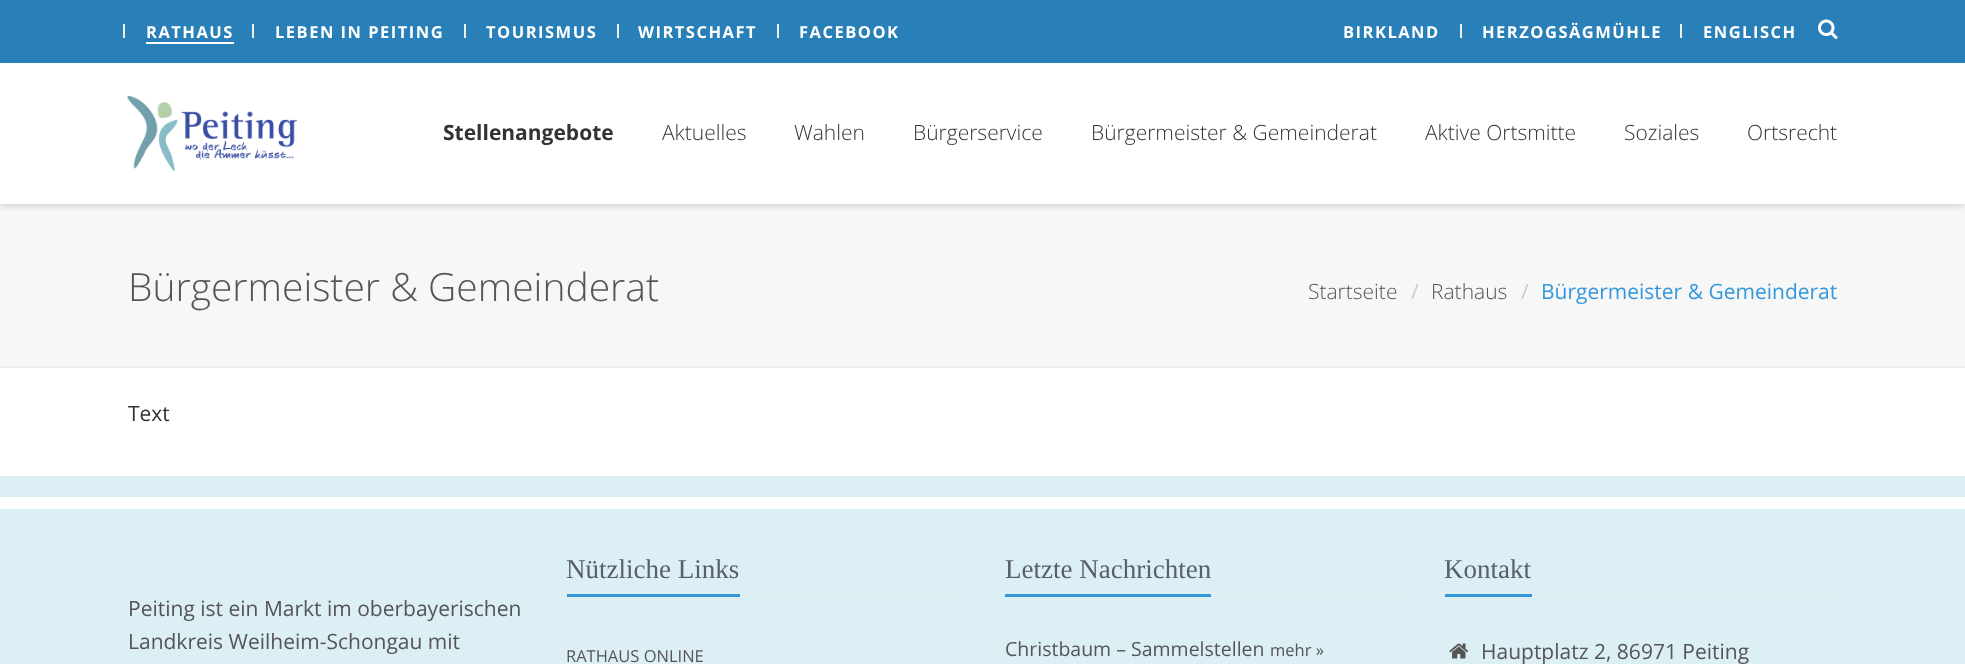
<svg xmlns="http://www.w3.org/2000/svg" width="1965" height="664">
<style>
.a{font:bold 16.5px Open Sans;letter-spacing:1.5px;fill:#fff}
.b{font:bold 21px Open Sans;fill:#333}
.c{font:300 21px Open Sans;fill:#333}
.d{font:300 39px Open Sans;fill:#555}
.e{font:300 21px Open Sans;fill:#555}
.f{font:21px Open Sans;fill:#ccc}
.g{font:21px Open Sans;fill:#3498db}
.h{font:21px Open Sans;fill:#333}
.i{font:21px Open Sans;fill:#555}
.j{font:27px Liberation Serif;fill:#585f69}
.k{font:16.5px Open Sans;fill:#555}
.l{font:19.5px Open Sans;fill:#555}
</style>
<defs>
<clipPath id="clip1"><path d="M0 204h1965v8H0z"/></clipPath>
</defs>
<rect width="100%" height="100%" fill="#fff"/>
<path fill="#f7f7f7" d="M0 204h1965v162H0z"/>
<g clip-path="url(#clip1)">
<path fill="#bbb" filter="blur(4px)" d="M0 0h1965v204H0z"/>
</g>
<path fill="#2980b9" d="M0 0h1965v63H0z"/>
<path fill="#eee" d="M123 24h2v14H123z"/>
<path fill="#fff" d="M146 42h88v2H146z"/>
<path fill="#eee" d="M252 24h2v14H252z"/>
<path fill="#eee" d="M464 24h2v14H464z"/>
<path fill="#eee" d="M617 24h2v14H617z"/>
<path fill="#eee" d="M777 24h2v14H777z"/>
<path fill="#eee" d="M1460 24h2v14H1460z"/>
<path fill="#eee" d="M1680 24h2v14H1680z"/>
<image href="1.png" x="1818" y="19" width="20" height="20"/>
<image href="2.png" x="127" y="96" width="170" height="75"/>
<path fill="#eee" d="M0 366h1965v2H0z"/>
<path fill="#dceff5" d="M0 476h1965v188H0z"/>
<path fill="#fff" d="M0 497h1965v12H0z"/>
<path fill="none" stroke="#e4e9f0" stroke-width="1.5" stroke-dasharray="1.5 1.5" d="M567 595h393"/>
<path fill="#3498db" d="M567 594h173v3H567z"/>
<path fill="none" stroke="#e4e9f0" stroke-width="1.5" stroke-dasharray="1.5 1.5" d="M1005 595h394.5"/>
<path fill="#3498db" d="M1005 594h206v3H1005z"/>
<path fill="none" stroke="#e4e9f0" stroke-width="1.5" stroke-dasharray="1.5 1.5" d="M1444.5 595h393"/>
<path fill="#3498db" d="M1445 594h87v3H1445z"/>
<image href="3.png" x="1449" y="643" width="20" height="16"/>
<text class="a" x="146" y="38">RATHAUS</text>
<text class="a" x="275" y="38">LEBEN IN PEITING</text>
<text class="a" x="486" y="38">TOURISMUS</text>
<text class="a" x="638" y="38">WIRTSCHAFT</text>
<text class="a" x="799" y="38">FACEBOOK</text>
<text class="a" x="1343" y="38">BIRKLAND</text>
<text class="a" x="1482" y="38">HERZOGSÄGMÜHLE</text>
<text class="a" x="1703" y="38">ENGLISCH</text>
<text class="b" x="443" y="140">Stellenangebote</text>
<text class="c" x="662" y="140">Aktuelles</text>
<text class="c" x="794" y="140">Wahlen</text>
<text class="c" x="913" y="140">Bürgerservice</text>
<text class="c" x="1091" y="140">Bürgermeister &amp; Gemeinderat</text>
<text class="c" x="1425" y="140">Aktive Ortsmitte</text>
<text class="c" x="1624" y="140">Soziales</text>
<text class="c" x="1747" y="140">Ortsrecht</text>
<text class="d" x="128" y="301">Bürgermeister &amp; Gemeinderat</text>
<text class="e" x="1308" y="299">Startseite</text>
<text class="f" x="1411" y="299">/</text>
<text class="e" x="1431" y="299">Rathaus</text>
<text class="f" x="1521" y="299">/</text>
<text class="g" x="1541" y="299">Bürgermeister &amp; Gemeinderat</text>
<text class="h" x="128" y="421">Text</text>
<text class="i" x="128" y="616">Peiting ist ein Markt im oberbayerischen</text>
<text class="i" x="128" y="649">Landkreis Weilheim-Schongau mit</text>
<text class="j" x="566" y="578">Nützliche Links</text>
<text class="k" x="566" y="662">RATHAUS ONLINE</text>
<text class="j" x="1005" y="578">Letzte Nachrichten</text>
<text class="l" x="1005" y="656">Christbaum – Sammelstellen</text>
<text class="k" x="1270" y="656">mehr »</text>
<text class="j" x="1444" y="578">Kontakt</text>
<text class="i" x="1481" y="659">Hauptplatz 2, 86971 Peiting</text>
</svg>
